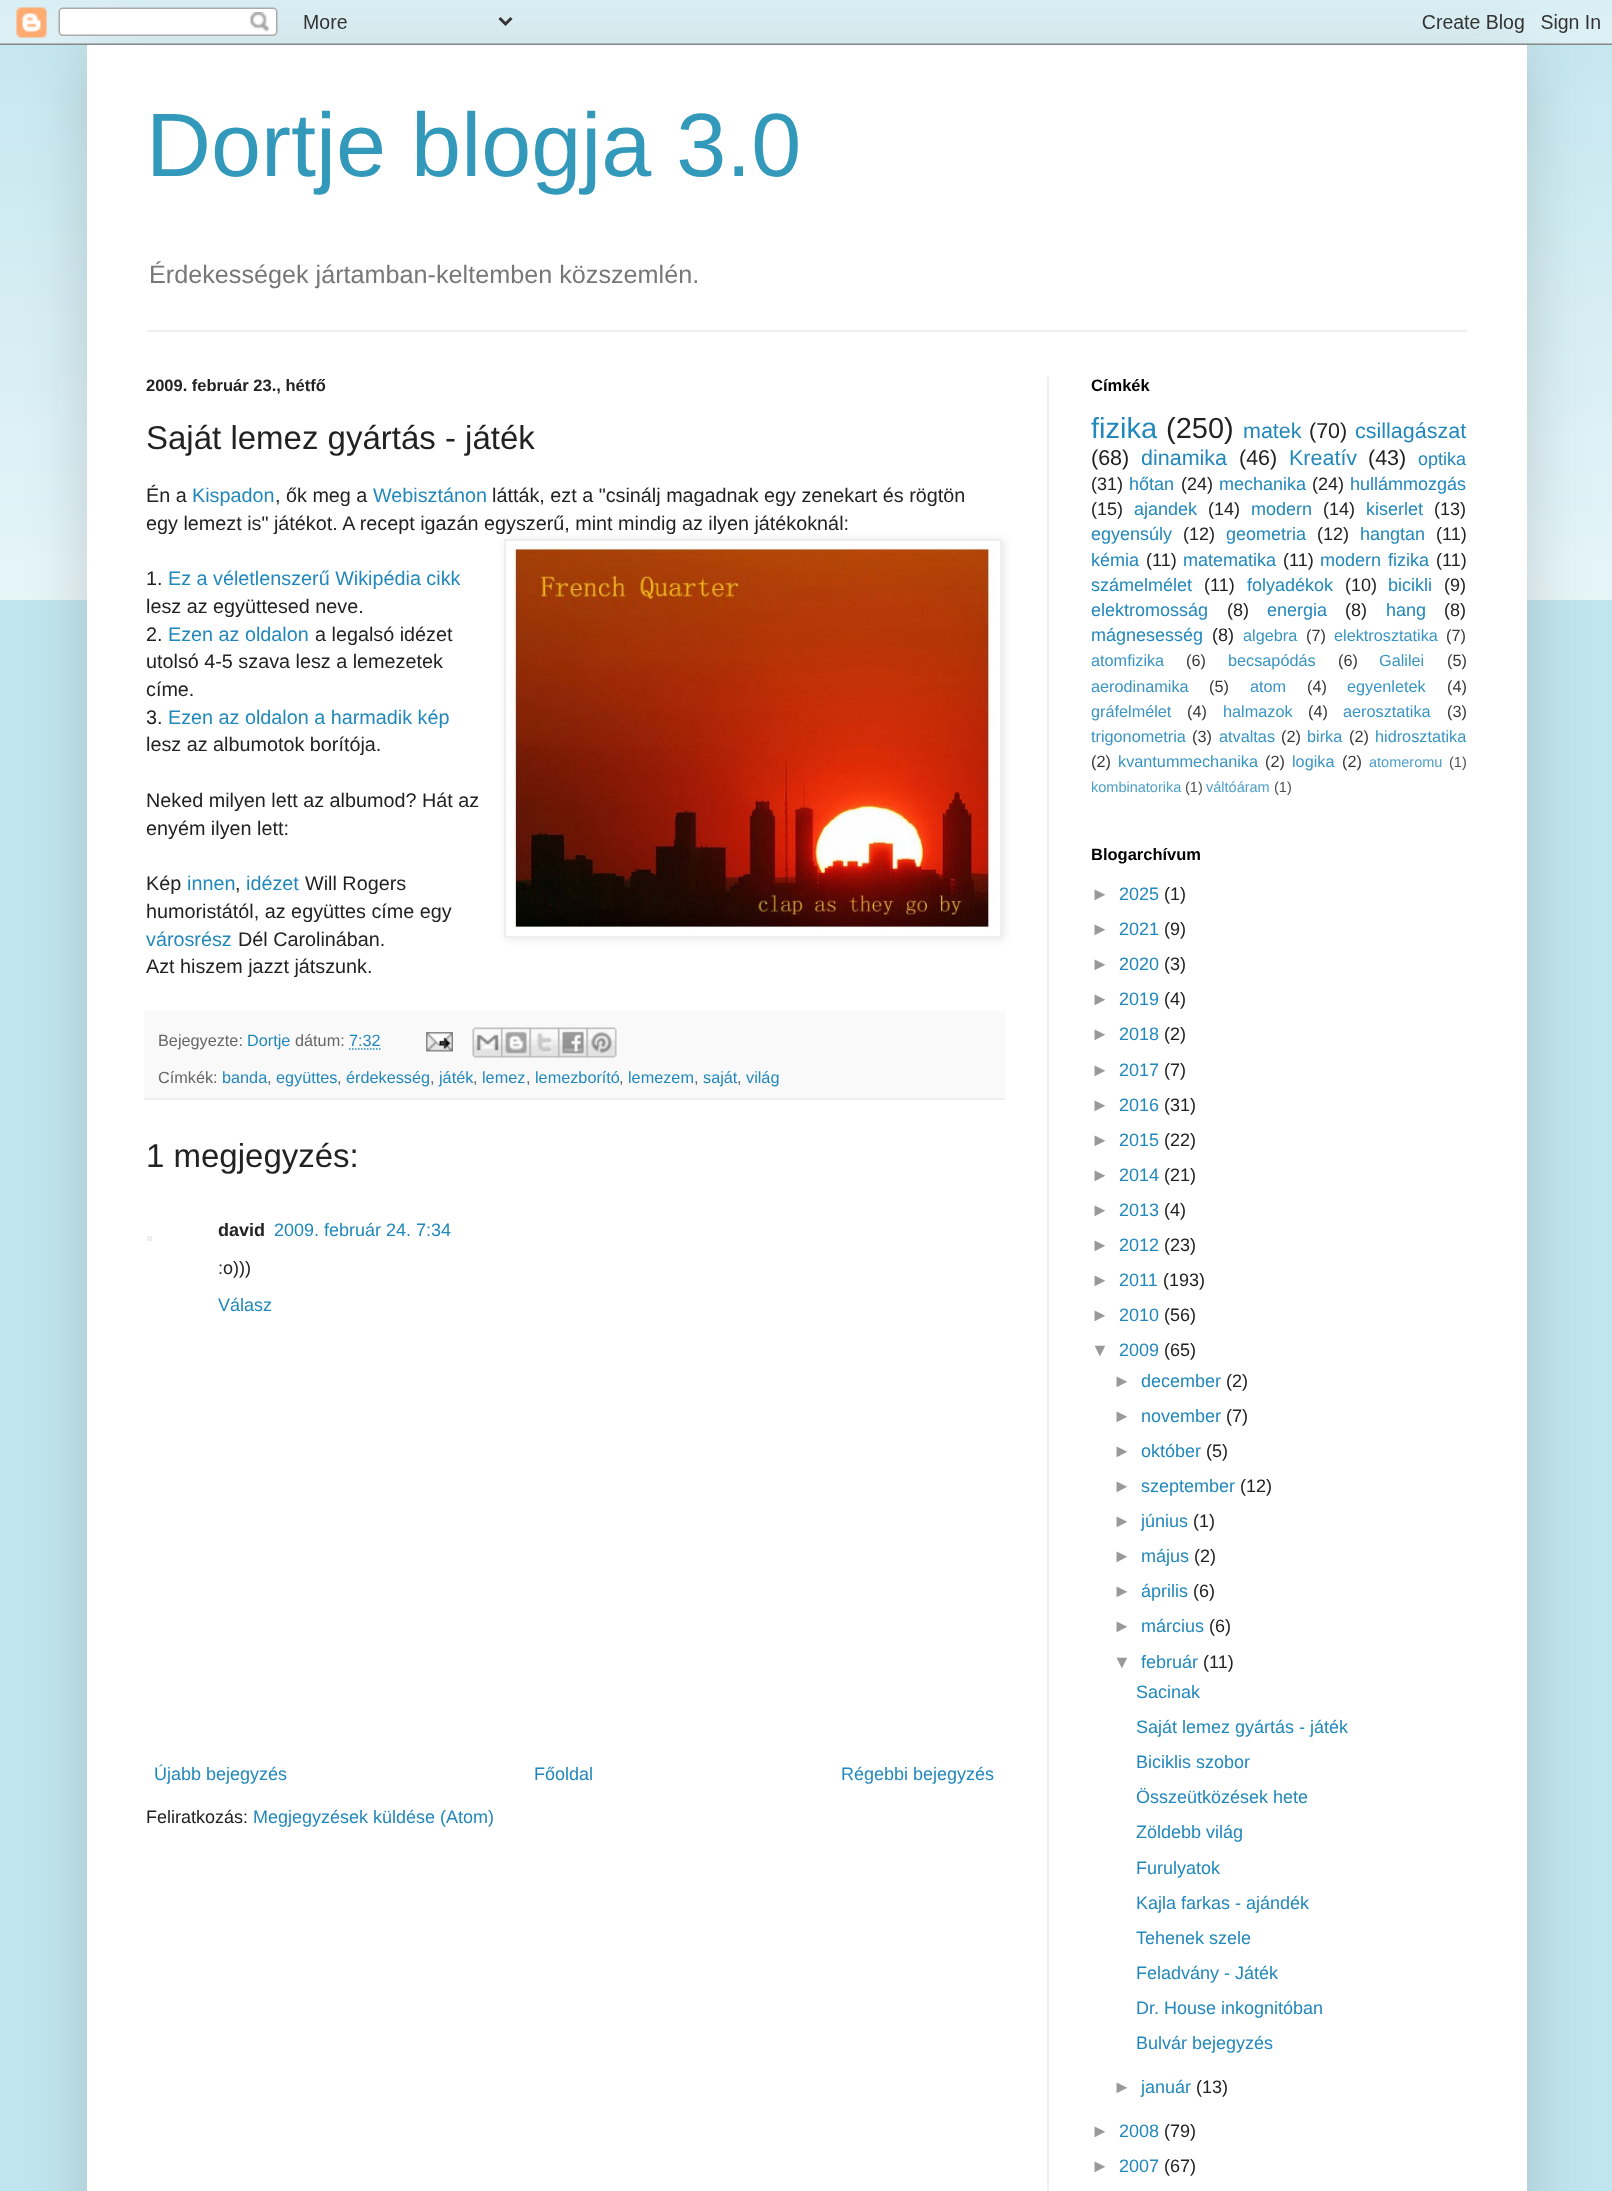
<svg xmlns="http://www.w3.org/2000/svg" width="1612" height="2191">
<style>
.a{font:90px Liberation Sans;fill:#39b}
.b{font:25.2px Liberation Sans;fill:#777}
.c{font:bold 16.5px Liberation Sans;fill:#222}
.d{font:33px Liberation Sans;fill:#222}
.e{font:19.8px Liberation Sans;fill:#222}
.f{font:19.8px Liberation Sans;fill:#28b}
.g{font:16.25px Liberation Sans;fill:#666}
.h{font:16.25px Liberation Sans;fill:#28b}
.i{font:bold 18px Liberation Sans;fill:#222}
.j{font:18px Liberation Sans;fill:#28b}
.k{font:18px Liberation Sans;fill:#222}
.l{font:bold 16.5px Liberation Sans;fill:#000}
.m{font:29px Liberation Sans;fill:#28b}
.n{font:29px Liberation Sans;fill:#222}
.o{font:21.5px Liberation Sans;fill:#28b}
.p{font:21.5px Liberation Sans;fill:#222}
.q{font:16.25px Liberation Sans;fill:#3894c2}
.r{font:16.25px Liberation Sans;fill:#383838}
.s{font:14.5px Liberation Sans;fill:#4ea0c9}
.t{font:14.5px Liberation Sans;fill:#4e4e4e}
.u{font:18px Liberation Sans;fill:#999}
</style>
<rect width="100%" height="100%" fill="#c1e5ee"/>
<image href="2.png" x="0" y="15" width="1612" height="585"/>
<path fill="#00000026" filter="blur(30px)" d="M87 45h1440v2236H87z"/>
<image href="1.png" x="0" y="0" width="1612" height="45"/>
<path fill="#fff" d="M87 45h1440v2146H87z"/>
<path fill="#eee" d="M147 330h1320v2H147z"/>
<path fill="#eee" d="M1047 377h2v1814H1047z"/>
<path fill="#0000001a" filter="blur(4px)" d="M506 540h498v399H506z"/>
<path fill="#fff" stroke="#eee" stroke-width="2" d="M505 540h496v397H505z"/>
<image href="3.png" x="513" y="547" width="480" height="382"/>
<path fill="#f9f9f9" d="M144 1011h861v87H144z"/>
<path fill="#eee" d="M144 1098h861v2H144z"/>
<path fill="none" stroke="#28b" stroke-width="1.5" stroke-dasharray="1.5 1.5" d="M349 1049h31.5"/>
<image href="4.png" x="426" y="1032" width="27" height="20"/>
<image href="5.png" x="472" y="1027" width="31" height="31"/>
<image href="6.png" x="501" y="1027" width="30" height="31"/>
<image href="7.png" x="529" y="1027" width="31" height="31"/>
<image href="8.png" x="558" y="1027" width="30" height="31"/>
<image href="9.png" x="586" y="1027" width="31" height="31"/>
<path fill="none" stroke="#eee" stroke-width="2" d="M148 1237h3v3H148z"/>
<text class="a" x="146" y="176">Dortje blogja 3.0</text>
<text class="b" x="149" y="283">Érdekességek jártamban-keltemben közszemlén.</text>
<text class="c" x="146" y="391">2009. február 23., hétfő</text>
<text class="d" x="146" y="449">Saját lemez gyártás - játék</text>
<text class="e" x="146" y="502">Én a</text>
<text class="f" x="192" y="502">Kispadon</text>
<text class="e" x="275" y="502">, ők meg a</text>
<text class="f" x="373" y="502">Webisztánon</text>
<text class="e" x="492" y="502">látták, ezt a "csinálj magadnak egy zenekart és rögtön</text>
<text class="e" x="146" y="530">egy lemezt is" játékot. A recept igazán egyszerű, mint mindig az ilyen játékoknál:</text>
<text class="e" x="146" y="585">1.</text>
<text class="f" x="168" y="585">Ez a véletlenszerű Wikipédia cikk</text>
<text class="e" x="146" y="613">lesz az együttesed neve.</text>
<text class="e" x="146" y="641">2.</text>
<text class="f" x="168" y="641">Ezen az oldalon</text>
<text class="e" x="315" y="641">a legalsó idézet</text>
<text class="e" x="146" y="668">utolsó 4-5 szava lesz a lemezetek</text>
<text class="e" x="146" y="696">címe.</text>
<text class="e" x="146" y="724">3.</text>
<text class="f" x="168" y="724">Ezen az oldalon a harmadik kép</text>
<text class="e" x="146" y="751">lesz az albumotok borítója.</text>
<text class="e" x="146" y="807">Neked milyen lett az albumod? Hát az</text>
<text class="e" x="146" y="835">enyém ilyen lett:</text>
<text class="e" x="146" y="890">Kép</text>
<text class="f" x="187" y="890">innen</text>
<text class="e" x="235" y="890">,</text>
<text class="f" x="246" y="890">idézet</text>
<text class="e" x="305" y="890">Will Rogers</text>
<text class="e" x="146" y="918">humoristától, az együttes címe egy</text>
<text class="f" x="146" y="946">városrész</text>
<text class="e" x="238" y="946">Dél Carolinában.</text>
<text class="e" x="146" y="973">Azt hiszem jazzt játszunk.</text>
<text class="g" x="158" y="1046">Bejegyezte:</text>
<text class="h" x="247" y="1046">Dortje</text>
<text class="g" x="295" y="1046">dátum:</text>
<text class="h" x="349" y="1046">7:32</text>
<text class="g" x="158" y="1083">Címkék:</text>
<text class="h" x="222" y="1083">banda</text>
<text class="g" x="267" y="1083">,</text>
<text class="h" x="276" y="1083">együttes</text>
<text class="g" x="337" y="1083">,</text>
<text class="h" x="346" y="1083">érdekesség</text>
<text class="g" x="430" y="1083">,</text>
<text class="h" x="439" y="1083">játék</text>
<text class="g" x="473" y="1083">,</text>
<text class="h" x="482" y="1083">lemez</text>
<text class="g" x="526" y="1083">,</text>
<text class="h" x="535" y="1083">lemezborító</text>
<text class="g" x="619" y="1083">,</text>
<text class="h" x="628" y="1083">lemezem</text>
<text class="g" x="694" y="1083">,</text>
<text class="h" x="703" y="1083">saját</text>
<text class="g" x="737" y="1083">,</text>
<text class="h" x="746" y="1083">világ</text>
<text class="d" x="146" y="1167">1 megjegyzés:</text>
<text class="i" x="218" y="1236">david</text>
<text class="j" x="274" y="1236">2009. február 24. 7:34</text>
<text class="k" x="218" y="1274">:o)))</text>
<text class="j" x="218" y="1311">Válasz</text>
<text class="j" x="154" y="1780">Újabb bejegyzés</text>
<text class="j" x="534" y="1780">Főoldal</text>
<text class="j" x="841" y="1780">Régebbi bejegyzés</text>
<text class="k" x="146" y="1823">Feliratkozás:</text>
<text class="j" x="253" y="1823">Megjegyzések küldése (Atom)</text>
<text class="l" x="1091" y="391">Címkék</text>
<text class="m" x="1091" y="438">fizika</text>
<text class="n" x="1166" y="438">(250)</text>
<text class="o" x="1243" y="438">matek</text>
<text class="p" x="1309" y="438">(70)</text>
<text class="o" x="1355" y="438">csillagászat</text>
<text class="p" x="1091" y="465">(68)</text>
<text class="o" x="1141" y="465">dinamika</text>
<text class="p" x="1239" y="465">(46)</text>
<text class="o" x="1289" y="465">Kreatív</text>
<text class="p" x="1368" y="465">(43)</text>
<text class="j" x="1418" y="465">optika</text>
<text class="k" x="1091" y="490">(31)</text>
<text class="j" x="1129" y="490">hőtan</text>
<text class="k" x="1181" y="490">(24)</text>
<text class="j" x="1219" y="490">mechanika</text>
<text class="k" x="1312" y="490">(24)</text>
<text class="j" x="1350" y="490">hullámmozgás</text>
<text class="k" x="1091" y="515">(15)</text>
<text class="j" x="1134" y="515">ajandek</text>
<text class="k" x="1208" y="515">(14)</text>
<text class="j" x="1251" y="515">modern</text>
<text class="k" x="1323" y="515">(14)</text>
<text class="j" x="1366" y="515">kiserlet</text>
<text class="k" x="1434" y="515">(13)</text>
<text class="j" x="1091" y="540">egyensúly</text>
<text class="k" x="1183" y="540">(12)</text>
<text class="j" x="1226" y="540">geometria</text>
<text class="k" x="1317" y="540">(12)</text>
<text class="j" x="1360" y="540">hangtan</text>
<text class="k" x="1436" y="540">(11)</text>
<text class="j" x="1091" y="566">kémia</text>
<text class="k" x="1146" y="566">(11)</text>
<text class="j" x="1183" y="566">matematika</text>
<text class="k" x="1283" y="566">(11)</text>
<text class="j" x="1320" y="566" word-spacing="2">modern fizika</text>
<text class="k" x="1436" y="566">(11)</text>
<text class="j" x="1091" y="591">számelmélet</text>
<text class="k" x="1204" y="591">(11)</text>
<text class="j" x="1247" y="591">folyadékok</text>
<text class="k" x="1345" y="591">(10)</text>
<text class="j" x="1388" y="591">bicikli</text>
<text class="k" x="1444" y="591">(9)</text>
<text class="j" x="1091" y="616">elektromosság</text>
<text class="k" x="1227" y="616">(8)</text>
<text class="j" x="1267" y="616">energia</text>
<text class="k" x="1345" y="616">(8)</text>
<text class="j" x="1386" y="616">hang</text>
<text class="k" x="1444" y="616">(8)</text>
<text class="j" x="1091" y="641">mágnesesség</text>
<text class="k" x="1212" y="641">(8)</text>
<text class="q" x="1243" y="641">algebra</text>
<text class="r" x="1306" y="641">(7)</text>
<text class="q" x="1334" y="641">elektrosztatika</text>
<text class="r" x="1446" y="641">(7)</text>
<text class="q" x="1091" y="666">atomfizika</text>
<text class="r" x="1186" y="666">(6)</text>
<text class="q" x="1228" y="666">becsapódás</text>
<text class="r" x="1338" y="666">(6)</text>
<text class="q" x="1379" y="666">Galilei</text>
<text class="r" x="1447" y="666">(5)</text>
<text class="q" x="1091" y="692">aerodinamika</text>
<text class="r" x="1209" y="692">(5)</text>
<text class="q" x="1250" y="692">atom</text>
<text class="r" x="1307" y="692">(4)</text>
<text class="q" x="1347" y="692">egyenletek</text>
<text class="r" x="1447" y="692">(4)</text>
<text class="q" x="1091" y="717">gráfelmélet</text>
<text class="r" x="1187" y="717">(4)</text>
<text class="q" x="1223" y="717">halmazok</text>
<text class="r" x="1308" y="717">(4)</text>
<text class="q" x="1343" y="717">aerosztatika</text>
<text class="r" x="1447" y="717">(3)</text>
<text class="q" x="1091" y="742">trigonometria</text>
<text class="r" x="1192" y="742">(3)</text>
<text class="q" x="1219" y="742">atvaltas</text>
<text class="r" x="1281" y="742">(2)</text>
<text class="q" x="1307" y="742">birka</text>
<text class="r" x="1349" y="742">(2)</text>
<text class="q" x="1375" y="742">hidrosztatika</text>
<text class="r" x="1091" y="767">(2)</text>
<text class="q" x="1118" y="767">kvantummechanika</text>
<text class="r" x="1265" y="767">(2)</text>
<text class="q" x="1292" y="767">logika</text>
<text class="r" x="1342" y="767">(2)</text>
<text class="s" x="1369" y="767">atomeromu</text>
<text class="t" x="1449" y="767">(1)</text>
<text class="s" x="1091" y="792">kombinatorika</text>
<text class="t" x="1185" y="792">(1)</text>
<text class="s" x="1206" y="792">váltóáram</text>
<text class="t" x="1274" y="792">(1)</text>
<text class="l" x="1091" y="860">Blogarchívum</text>
<text class="u" x="1091" y="900">►</text>
<text class="j" x="1119" y="900">2025</text>
<text class="k" x="1164" y="900">(1)</text>
<text class="u" x="1091" y="935">►</text>
<text class="j" x="1119" y="935">2021</text>
<text class="k" x="1164" y="935">(9)</text>
<text class="u" x="1091" y="970">►</text>
<text class="j" x="1119" y="970">2020</text>
<text class="k" x="1164" y="970">(3)</text>
<text class="u" x="1091" y="1005">►</text>
<text class="j" x="1119" y="1005">2019</text>
<text class="k" x="1164" y="1005">(4)</text>
<text class="u" x="1091" y="1040">►</text>
<text class="j" x="1119" y="1040">2018</text>
<text class="k" x="1164" y="1040">(2)</text>
<text class="u" x="1091" y="1076">►</text>
<text class="j" x="1119" y="1076">2017</text>
<text class="k" x="1164" y="1076">(7)</text>
<text class="u" x="1091" y="1111">►</text>
<text class="j" x="1119" y="1111">2016</text>
<text class="k" x="1164" y="1111">(31)</text>
<text class="u" x="1091" y="1146">►</text>
<text class="j" x="1119" y="1146">2015</text>
<text class="k" x="1164" y="1146">(22)</text>
<text class="u" x="1091" y="1181">►</text>
<text class="j" x="1119" y="1181">2014</text>
<text class="k" x="1164" y="1181">(21)</text>
<text class="u" x="1091" y="1216">►</text>
<text class="j" x="1119" y="1216">2013</text>
<text class="k" x="1164" y="1216">(4)</text>
<text class="u" x="1091" y="1251">►</text>
<text class="j" x="1119" y="1251">2012</text>
<text class="k" x="1164" y="1251">(23)</text>
<text class="u" x="1091" y="1286">►</text>
<text class="j" x="1119" y="1286">2011</text>
<text class="k" x="1163" y="1286">(193)</text>
<text class="u" x="1091" y="1321">►</text>
<text class="j" x="1119" y="1321">2010</text>
<text class="k" x="1164" y="1321">(56)</text>
<text class="u" x="1091" y="1356">▼</text>
<text class="j" x="1119" y="1356">2009</text>
<text class="k" x="1164" y="1356">(65)</text>
<text class="u" x="1113" y="1387">►</text>
<text class="j" x="1141" y="1387">december</text>
<text class="k" x="1226" y="1387">(2)</text>
<text class="u" x="1113" y="1422">►</text>
<text class="j" x="1141" y="1422">november</text>
<text class="k" x="1226" y="1422">(7)</text>
<text class="u" x="1113" y="1457">►</text>
<text class="j" x="1141" y="1457">október</text>
<text class="k" x="1206" y="1457">(5)</text>
<text class="u" x="1113" y="1492">►</text>
<text class="j" x="1141" y="1492">szeptember</text>
<text class="k" x="1240" y="1492">(12)</text>
<text class="u" x="1113" y="1527">►</text>
<text class="j" x="1141" y="1527">június</text>
<text class="k" x="1193" y="1527">(1)</text>
<text class="u" x="1113" y="1562">►</text>
<text class="j" x="1141" y="1562">május</text>
<text class="k" x="1194" y="1562">(2)</text>
<text class="u" x="1113" y="1597">►</text>
<text class="j" x="1141" y="1597">április</text>
<text class="k" x="1193" y="1597">(6)</text>
<text class="u" x="1113" y="1632">►</text>
<text class="j" x="1141" y="1632">március</text>
<text class="k" x="1209" y="1632">(6)</text>
<text class="u" x="1113" y="1668">▼</text>
<text class="j" x="1141" y="1668">február</text>
<text class="k" x="1203" y="1668">(11)</text>
<text class="j" x="1136" y="1698">Sacinak</text>
<text class="j" x="1136" y="1733">Saját lemez gyártás - játék</text>
<text class="j" x="1136" y="1768">Biciklis szobor</text>
<text class="j" x="1136" y="1803">Összeütközések hete</text>
<text class="j" x="1136" y="1838">Zöldebb világ</text>
<text class="j" x="1136" y="1874">Furulyatok</text>
<text class="j" x="1136" y="1909">Kajla farkas - ajándék</text>
<text class="j" x="1136" y="1944">Tehenek szele</text>
<text class="j" x="1136" y="1979">Feladvány - Játék</text>
<text class="j" x="1136" y="2014">Dr. House inkognitóban</text>
<text class="j" x="1136" y="2049">Bulvár bejegyzés</text>
<text class="u" x="1113" y="2093">►</text>
<text class="j" x="1141" y="2093">január</text>
<text class="k" x="1196" y="2093">(13)</text>
<text class="u" x="1091" y="2137">►</text>
<text class="j" x="1119" y="2137">2008</text>
<text class="k" x="1164" y="2137">(79)</text>
<text class="u" x="1091" y="2172">►</text>
<text class="j" x="1119" y="2172">2007</text>
<text class="k" x="1164" y="2172">(67)</text>
</svg>
